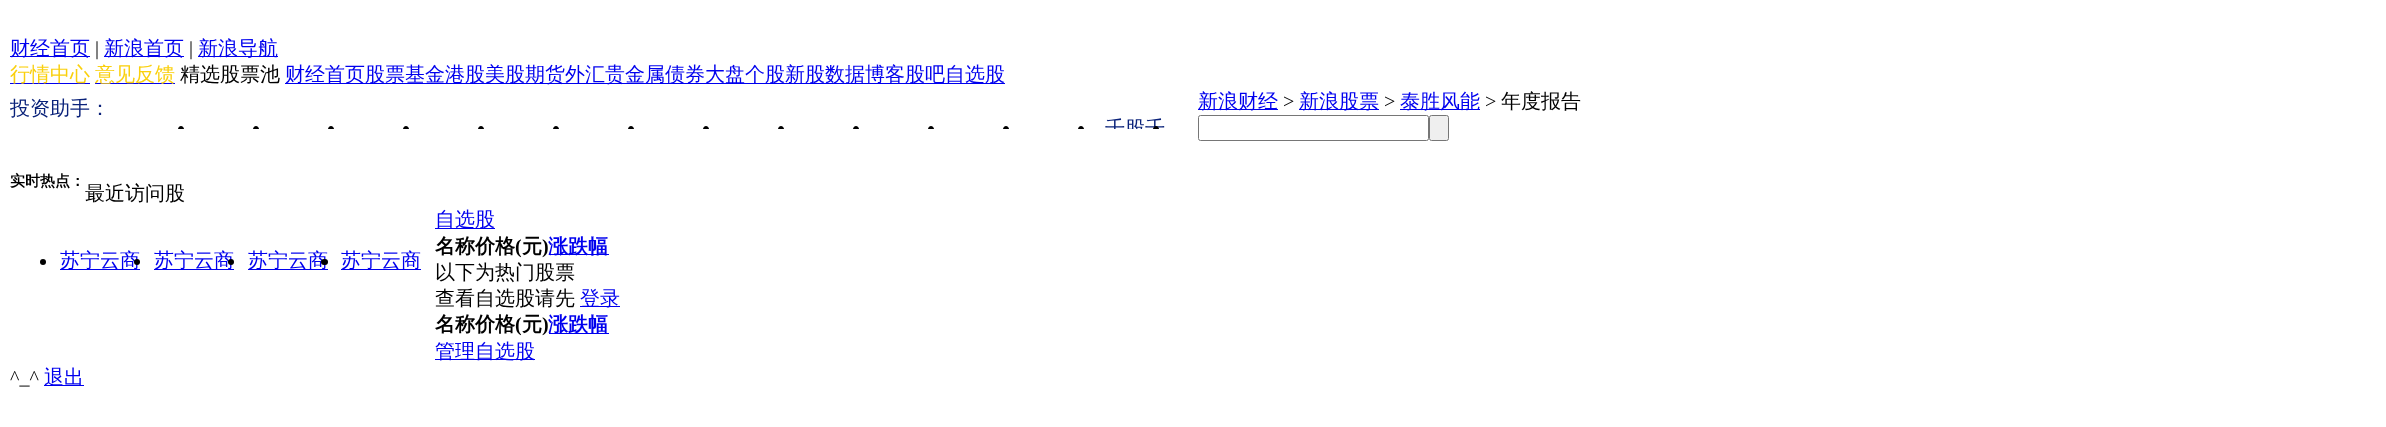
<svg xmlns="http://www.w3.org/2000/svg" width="2386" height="427">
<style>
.a{font:500 20px WenQuanYi Zen Hei;fill:#00e}
.b{font:20px Liberation Serif;fill:#000}
.c{font:500 20px WenQuanYi Zen Hei;fill:#fad00d}
.d{font:500 20px WenQuanYi Zen Hei;fill:#000}
.e{font:bold 15px WenQuanYi Zen Hei;fill:#000}
.f{font:500 20px WenQuanYi Zen Hei;fill:#0a227a}
.g{font:bold 20px WenQuanYi Zen Hei;fill:#000}
.h{font:bold 20px Liberation Serif;fill:#000}
.i{font:bold 20px WenQuanYi Zen Hei;fill:#00e}
</style>
<defs>
<clipPath id="clip1"><path d="M148 89h1050v40H148z"/></clipPath>
</defs>
<rect width="100%" height="100%" fill="#fff"/>
<path fill="#00e" d="M10 56h80v1H10z"/>
<path fill="#00e" d="M104 56h80v1H104z"/>
<path fill="#00e" d="M198 56h80v1H198z"/>
<path fill="#00e" d="M10 83h80v1H10z"/>
<path fill="#00e" d="M95 83h80v1H95z"/>
<path fill="#00e" d="M285 83h720v1H285z"/>
<path fill="#00e" d="M1198 109h80v1H1198z"/>
<path fill="#00e" d="M1299 109h80v1H1299z"/>
<path fill="#00e" d="M1400 109h80v1H1400z"/>
<rect fill="none" stroke="#767676" x="1198.5" y="115.5" width="230" height="25" rx="2"/>
<rect fill="#efefef" stroke="#767676" x="1429.5" y="115.5" width="19" height="25" rx="2"/>
<circle fill="#000" cx="43" cy="262" r="3"/>
<path fill="#00e" d="M60 269h80v1H60z"/>
<path fill="#00e" d="M154 269h80v1H154z"/>
<path fill="#00e" d="M248 269h80v1H248z"/>
<path fill="#00e" d="M341 269h80v1H341z"/>
<path fill="#000" d="M181 126c1.5 0 3 1.5 3 3h-6c0-1.5 1.5-3 3-3z"/>
<path fill="#000" d="M256 126c1.5 0 3 1.5 3 3h-6c0-1.5 1.5-3 3-3z"/>
<path fill="#000" d="M331 126c1.5 0 3 1.5 3 3h-6c0-1.5 1.5-3 3-3z"/>
<path fill="#000" d="M406 126c1.5 0 3 1.5 3 3h-6c0-1.5 1.5-3 3-3z"/>
<path fill="#000" d="M481 126c1.5 0 3 1.5 3 3h-6c0-1.5 1.5-3 3-3z"/>
<path fill="#000" d="M556 126c1.5 0 3 1.5 3 3h-6c0-1.5 1.5-3 3-3z"/>
<path fill="#000" d="M631 126c1.5 0 3 1.5 3 3h-6c0-1.5 1.5-3 3-3z"/>
<path fill="#000" d="M706 126c1.5 0 3 1.5 3 3h-6c0-1.5 1.5-3 3-3z"/>
<path fill="#000" d="M781 126c1.5 0 3 1.5 3 3h-6c0-1.5 1.5-3 3-3z"/>
<path fill="#000" d="M856 126c1.5 0 3 1.5 3 3h-6c0-1.5 1.5-3 3-3z"/>
<path fill="#000" d="M931 126c1.5 0 3 1.5 3 3h-6c0-1.5 1.5-3 3-3z"/>
<path fill="#000" d="M1006 126c1.5 0 3 1.5 3 3h-6c0-1.5 1.5-3 3-3z"/>
<path fill="#000" d="M1081 126c1.5 0 3 1.5 3 3h-6c0-1.5 1.5-3 3-3z"/>
<path fill="#00e" d="M435 228h60v1H435z"/>
<path fill="#00e" d="M549 254h60v1H549z"/>
<path fill="#00e" d="M580 306h40v1H580z"/>
<path fill="#00e" d="M549 333h60v1H549z"/>
<path fill="#00e" d="M435 359h100v1H435z"/>
<path fill="#00e" d="M44 385h40v1H44z"/>
<text class="a" x="10" y="55">财经首页</text>
<text class="b" x="95" y="55">|</text>
<text class="a" x="104" y="55">新浪首页</text>
<text class="b" x="189" y="55">|</text>
<text class="a" x="198" y="55">新浪导航</text>
<text class="c" x="10" y="81">行情中心</text>
<text class="c" x="95" y="81">意见反馈</text>
<text class="d" x="180" y="81">精选股票池</text>
<text class="a" x="285" y="81">财经首页股票基金港股美股期货外汇贵金属债券大盘个股新股数据博客股吧自选股</text>
<text class="a" x="1198" y="108">新浪财经</text>
<text class="b" x="1283" y="108">&gt;</text>
<text class="a" x="1299" y="108">新浪股票</text>
<text class="b" x="1384" y="108">&gt;</text>
<text class="a" x="1400" y="108">泰胜风能</text>
<text class="b" x="1485" y="108">&gt;</text>
<text class="d" x="1501" y="108">年度报告</text>
<text class="e" x="10" y="186">实时热点：</text>
<text class="a" x="60" y="267">苏宁云商</text>
<circle fill="#000" cx="137" cy="262" r="3"/>
<text class="a" x="154" y="267">苏宁云商</text>
<circle fill="#000" cx="231" cy="262" r="3"/>
<text class="a" x="248" y="267">苏宁云商</text>
<rect fill="#000" x="321" y="259" width="7" height="6" rx="3"/>
<text class="a" x="341" y="267">苏宁云商</text>
<text class="f" x="10" y="115">投资助手：</text>
<g clip-path="url(#clip1)">
<text class="f" x="1105" y="135">千股千</text>
</g>
<path fill="#000" d="M1156 126c1.5 0 3 1.5 3 3h-6c0-1.5 1.5-3 3-3z"/>
<text class="d" x="85" y="200">最近访问股</text>
<text class="a" x="435" y="226">自选股</text>
<text class="g" x="435" y="253">名称价格</text>
<text class="h" x="515" y="253">(</text>
<text class="g" x="522" y="253">元</text>
<text class="h" x="542" y="253">)</text>
<text class="i" x="548" y="253">涨跌幅</text>
<text class="d" x="435" y="279">以下为热门股票</text>
<text class="d" x="435" y="305">查看自选股请先</text>
<text class="a" x="580" y="305">登录</text>
<text class="g" x="435" y="331">名称价格</text>
<text class="h" x="515" y="331">(</text>
<text class="g" x="522" y="331">元</text>
<text class="h" x="542" y="331">)</text>
<text class="i" x="548" y="331">涨跌幅</text>
<text class="a" x="435" y="358">管理自选股</text>
<text class="b" x="10" y="384">^_^</text>
<text class="a" x="44" y="384">退出</text>
</svg>
